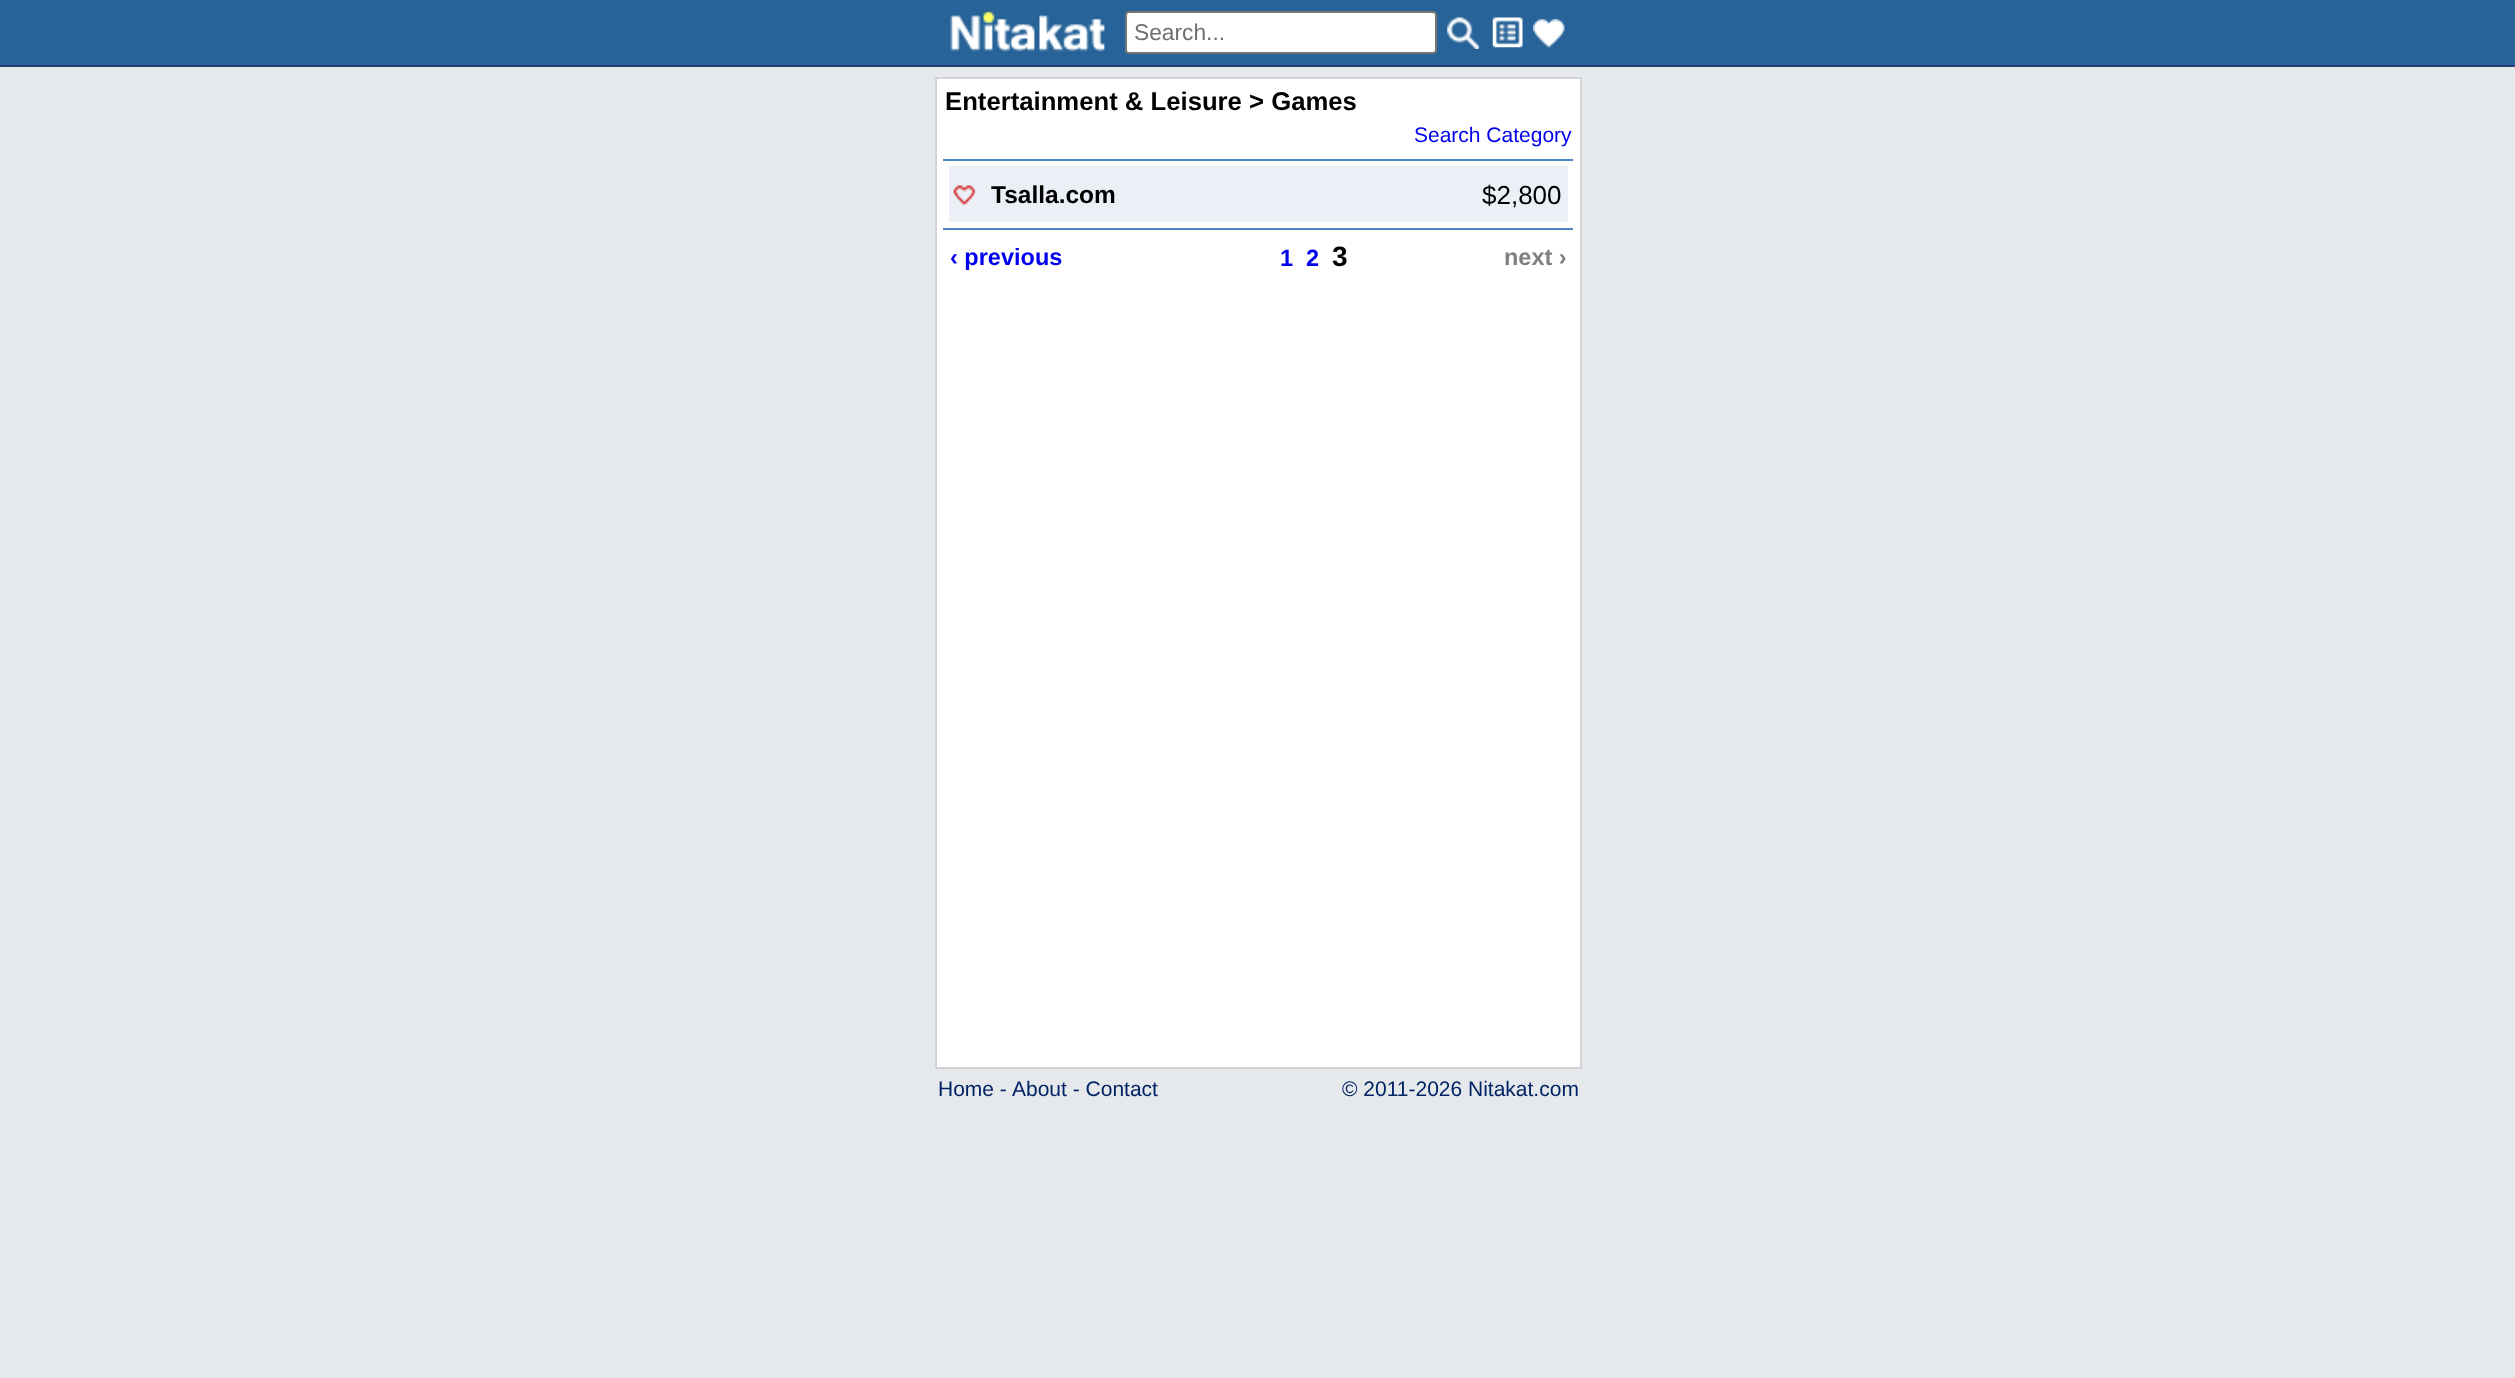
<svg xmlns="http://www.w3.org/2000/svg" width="2515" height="1378">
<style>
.a{font:22.75px Liberation Sans;fill:#707070}
.b{font:bold 25.7px Liberation Sans;fill:#000}
.c{font:21px Liberation Sans;fill:#00e}
.d{font:bold 24.5px Liberation Sans;fill:#000}
.e{font:26px Liberation Sans;fill:#000}
.f{font:bold 23.5px Liberation Sans;fill:#00e}
.g{font:bold 28px Liberation Sans;fill:#000}
.h{font:bold 23.5px Liberation Sans;fill:#808080}
.i{font:21px Liberation Sans;fill:#002365}
</style>
<rect width="100%" height="100%" fill="#e6e9eb"/>
<path fill="#276398" d="M0 0h2515v65H0z"/>
<path fill="#254170" d="M0 65h2515v2H0z"/>
<image href="1.png" x="950" y="10" width="155" height="42"/>
<rect fill="#fff" stroke="#767676" stroke-width="2" x="1126" y="12" width="310" height="41" rx="3"/>
<image href="2.png" x="1447" y="17" width="32" height="32"/>
<image href="3.png" x="1492" y="17" width="31" height="31"/>
<image href="4.png" x="1533" y="19" width="32" height="29"/>
<path fill="#fff" stroke="#d2d2d7" stroke-width="2" d="M936 78h645v990H936z"/>
<path fill="#4d88c4" d="M943 159h630v2H943z"/>
<path fill="#4d88c4" d="M943 228h630v2H943z"/>
<path fill="#ebf0f7" d="M949 166h619v56H949z"/>
<image href="5.png" x="953" y="185" width="22" height="20"/>
<text class="a" x="1134" y="40">Search...</text>
<text class="b" x="945" y="110">Entertainment &amp; Leisure &gt; Games</text>
<text class="c" x="1414" y="142">Search Category</text>
<text class="d" x="991" y="203">Tsalla.com</text>
<text class="e" x="1482" y="204">$2,800</text>
<text class="f" x="950" y="265">‹ previous</text>
<text class="f" x="1280" y="266">1</text>
<text class="f" x="1306" y="266">2</text>
<text class="g" x="1332" y="266">3</text>
<text class="h" x="1504" y="265">next ›</text>
<text class="i" x="938" y="1096">Home -</text>
<text class="i" x="1012" y="1096">About - Contact</text>
<text class="i" x="1342" y="1096">© 2011-2026 Nitakat.com</text>
</svg>
